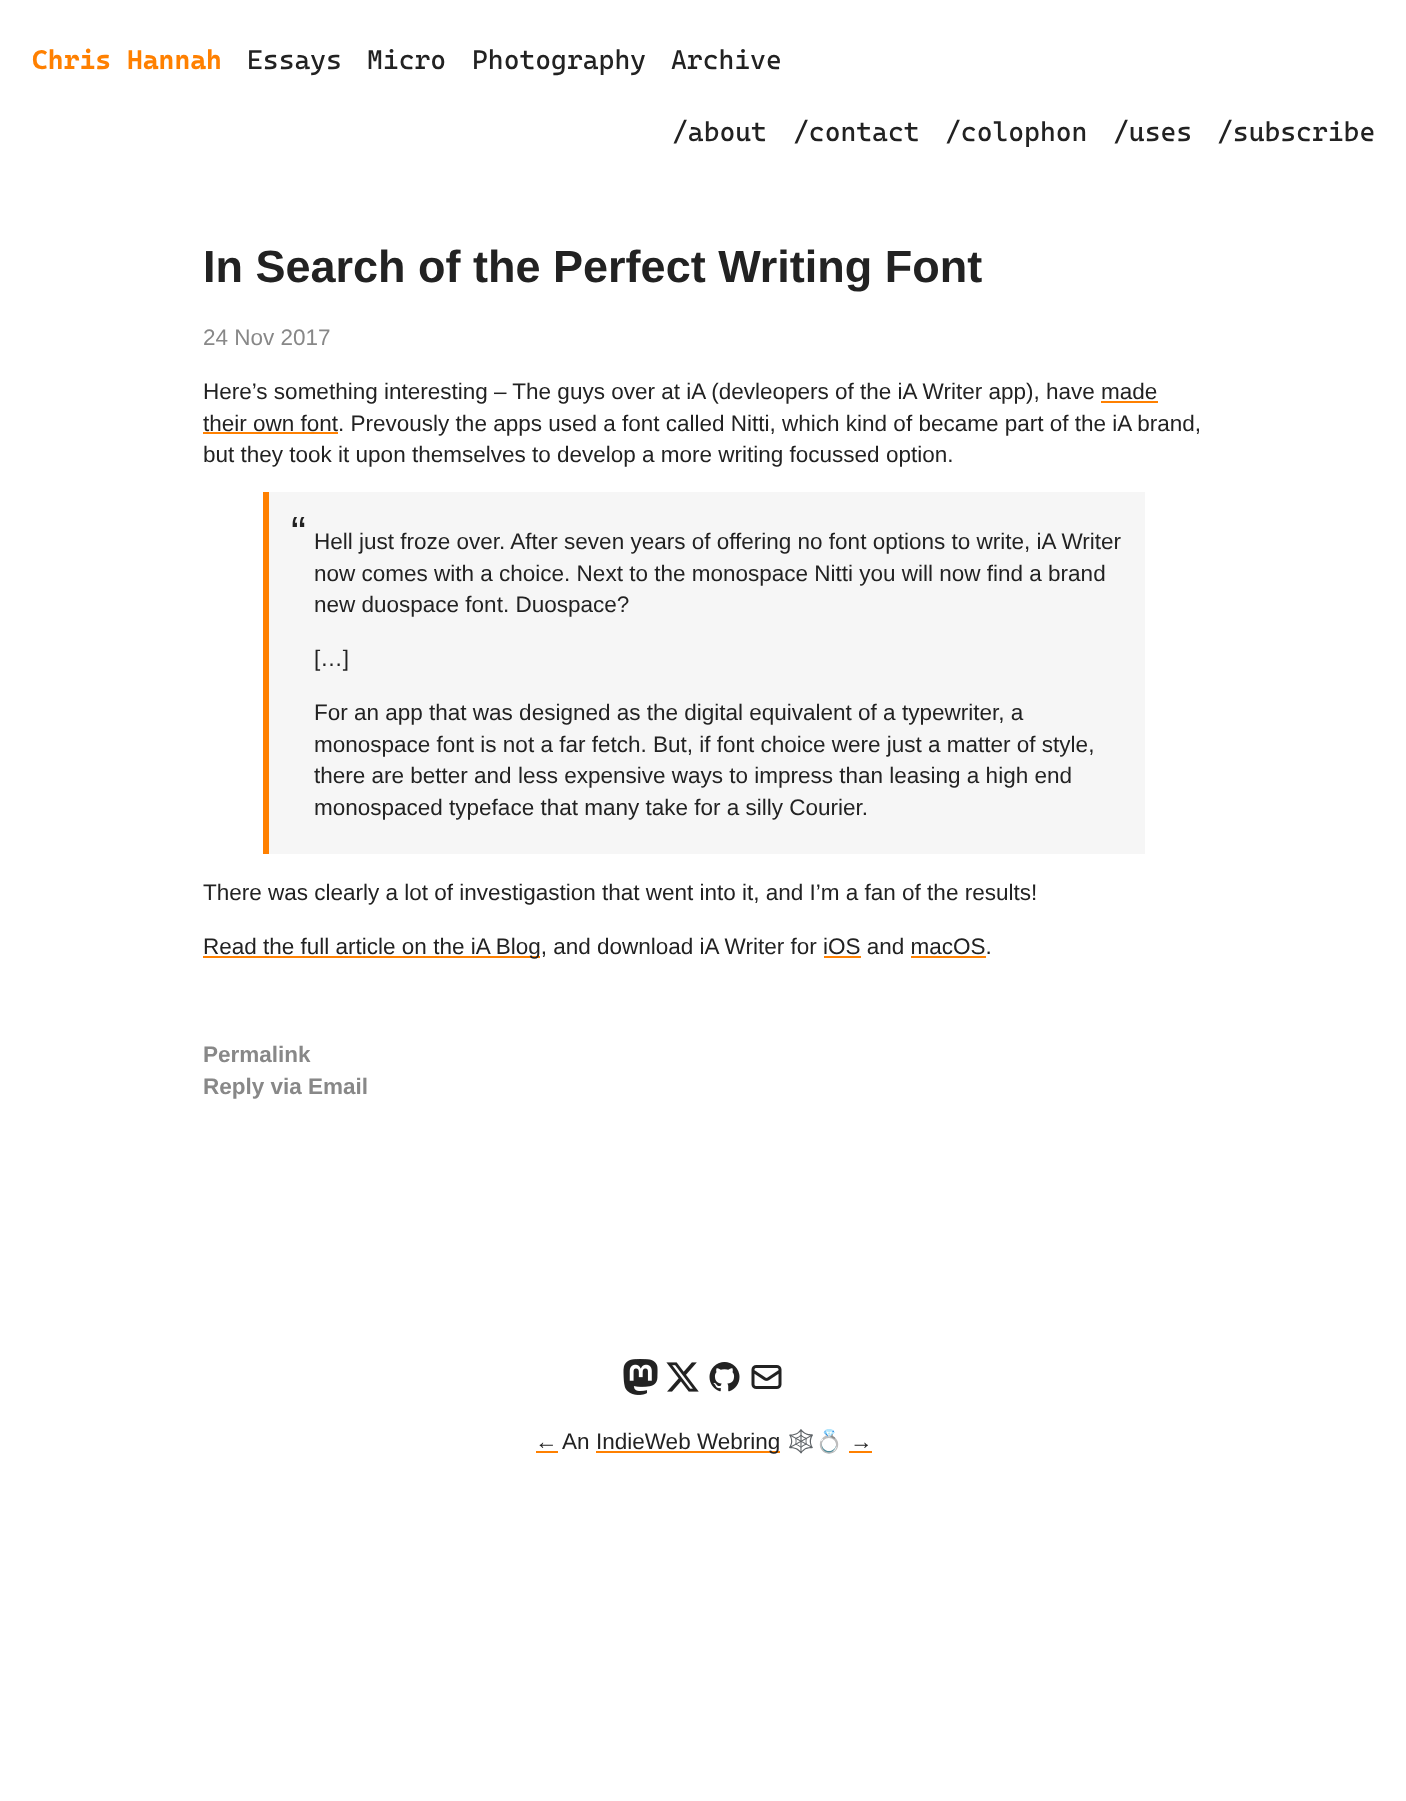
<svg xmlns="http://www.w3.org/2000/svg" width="1406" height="1801">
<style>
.a{font:bold 27px Cascadia Code;fill:#ff8000}
.b{font:27px Cascadia Code;fill:#222}
.c{font:bold 45px Liberation Sans;fill:#222}
.d{font:22.5px Liberation Sans;fill:#888}
.e{font:22.5px Liberation Sans;fill:#222}
.f{font:45px Liberation Sans;fill:#222}
.g{font:bold 22.5px Liberation Sans;fill:#888}
.h{font:22.5px Noto Color Emoji;fill:#222}
</style>
<rect width="100%" height="100%" fill="#fff"/>
<path fill="#ff8000" d="M203 432h135v2H203z"/>
<path fill="#f6f6f6" d="M269 492h876v362H269z"/>
<path fill="#ff8000" d="M263 492h6v362H263z"/>
<path fill="#ff8000" d="M203 956h337v2H203z"/>
<image href="1.png" x="623" y="1359" width="35" height="36"/>
<image href="2.png" x="666" y="1362" width="33" height="30"/>
<image href="3.png" x="709" y="1362" width="31" height="30"/>
<image href="4.png" x="751" y="1365" width="31" height="24"/>
<path fill="#ff8000" d="M536 1451h22v2H536z"/>
<path fill="#ff8000" d="M596 1451h184v2H596z"/>
<path fill="#ff8000" d="M849 1451h23v2H849z"/>
<text class="a" x="32" y="69">Chris Hannah</text>
<text class="b" x="247" y="69">Essays</text>
<text class="b" x="367" y="69">Micro</text>
<text class="b" x="472" y="69">Photography</text>
<text class="b" x="671" y="69">Archive</text>
<text class="b" x="672" y="141">/about</text>
<text class="b" x="793" y="141">/contact</text>
<text class="b" x="945" y="141">/colophon</text>
<text class="b" x="1113" y="141">/uses</text>
<text class="b" x="1217" y="141">/subscribe</text>
<text class="c" x="203" y="282">In Search of the Perfect Writing Font</text>
<text class="d" x="203" y="345">24 Nov 2017</text>
<text class="e" x="203" y="399">Here’s something interesting – The guys over at iA (devleopers of the iA Writer app), have made</text>
<text class="e" x="203" y="431">their own font. Prevously the apps used a font called Nitti, which kind of became part of the iA brand,</text>
<path fill="#ff8000" d="M1101 401h57v2H1101z"/>
<text class="e" x="203" y="462">but they took it upon themselves to develop a more writing focussed option.</text>
<text class="f" x="291" y="548">“</text>
<text class="e" x="314" y="549">Hell just froze over. After seven years of offering no font options to write, iA Writer</text>
<text class="e" x="314" y="581">now comes with a choice. Next to the monospace Nitti you will now find a brand</text>
<text class="e" x="314" y="612">new duospace font. Duospace?</text>
<text class="e" x="314" y="666">[…]</text>
<text class="e" x="314" y="720">For an app that was designed as the digital equivalent of a typewriter, a</text>
<text class="e" x="314" y="752">monospace font is not a far fetch. But, if font choice were just a matter of style,</text>
<text class="e" x="314" y="783">there are better and less expensive ways to impress than leasing a high end</text>
<text class="e" x="314" y="815">monospaced typeface that many take for a silly Courier.</text>
<text class="e" x="203" y="900">There was clearly a lot of investigastion that went into it, and I’m a fan of the results!</text>
<text class="e" x="203" y="954">Read the full article on the iA Blog, and download iA Writer for iOS and macOS.</text>
<path fill="#ff8000" d="M824 956h37v2H824z"/>
<path fill="#ff8000" d="M911 956h75v2H911z"/>
<text class="g" x="203" y="1062">Permalink</text>
<text class="g" x="203" y="1094">Reply via Email</text>
<text class="e" x="535" y="1449">←</text>
<text class="e" x="562" y="1449">An</text>
<text class="e" x="596" y="1449">IndieWeb Webring</text>
<text class="h" x="787" y="1449">🕸💍</text>
<text class="e" x="850" y="1449">→</text>
</svg>
